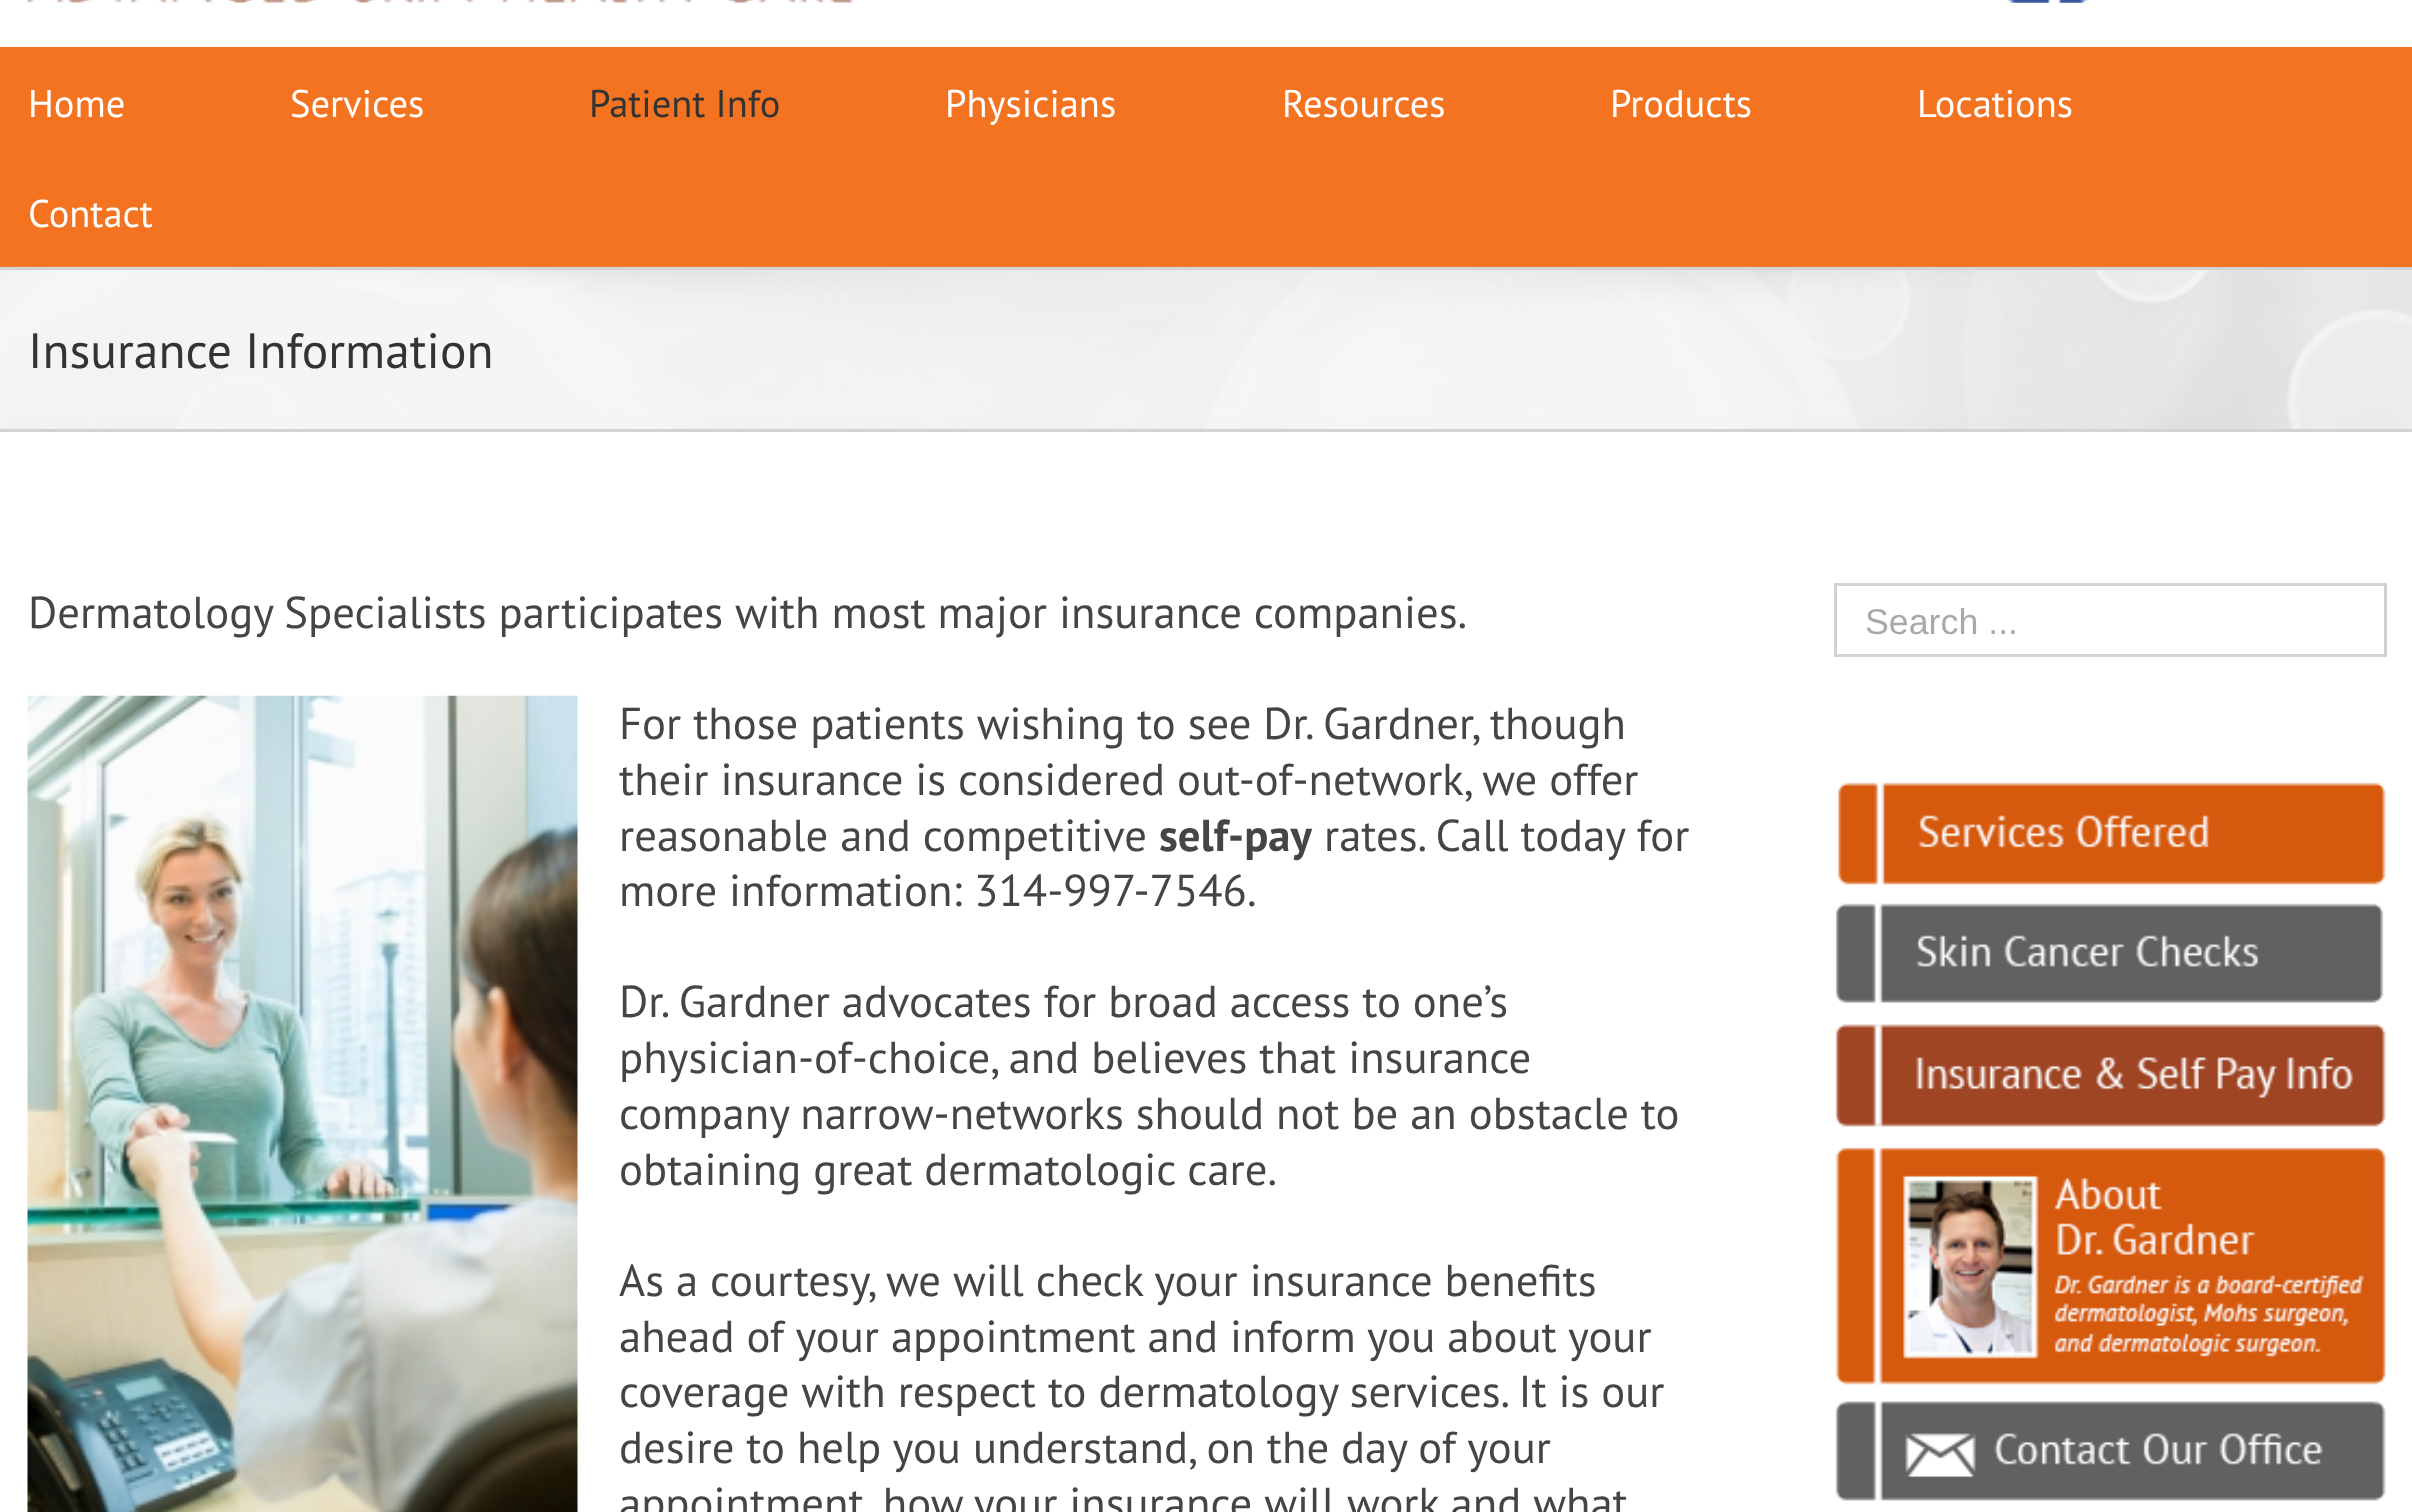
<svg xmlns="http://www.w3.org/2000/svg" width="2412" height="1512">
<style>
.a{font:38.5px PT Sans;fill:#fff}
.b{font:38.5px PT Sans;fill:#333}
.c{font:49.5px PT Sans;fill:#333}
.d{font:44.7px PT Sans;fill:#454545}
.e{font:bold 44.7px PT Sans;fill:#454545}
.f{font:35.75px Liberation Sans;fill:#aaa9a9}
</style>
<rect width="100%" height="100%" fill="#fff"/>
<image href="1.png" x="27" y="0" width="826" height="3"/>
<image href="2.png" x="2007" y="0" width="81" height="3"/>
<path fill="#f47321" d="M0 47h2412v220H0z"/>
<path fill="#f6f6f6" d="M0 270h2412v159H0z"/>
<image href="3.png" x="0" y="266" width="2412" height="163"/>
<path fill="#d2d3d4" d="M0 267h2412v3H0z"/>
<path fill="#d2d3d4" d="M0 429h2412v3H0z"/>
<image href="4.png" x="27" y="695" width="551" height="817"/>
<path fill="none" stroke="#d2d2d2" stroke-width="3" d="M1835.5 584.5h550v71H1835.5z"/>
<image href="5.png" x="1838" y="782" width="548" height="103"/>
<image href="6.png" x="1835" y="903" width="549" height="100"/>
<image href="7.png" x="1835" y="1024" width="551" height="103"/>
<image href="8.png" x="1835" y="1147" width="551" height="238"/>
<image href="9.png" x="1835" y="1401" width="551" height="100"/>
<text class="a" x="28" y="117">Home</text>
<text class="a" x="290" y="117">Services</text>
<text class="b" x="589" y="117">Patient Info</text>
<text class="a" x="945" y="117">Physicians</text>
<text class="a" x="1282" y="117">Resources</text>
<text class="a" x="1610" y="117">Products</text>
<text class="a" x="1917" y="117">Locations</text>
<text class="a" x="28" y="227">Contact</text>
<text class="c" x="28" y="368">Insurance Information</text>
<text class="d" x="28" y="628">Dermatology Specialists participates with most major insurance companies.</text>
<text class="d" x="619" y="739">For those patients wishing to see Dr. Gardner, though</text>
<text class="d" x="619" y="795">their insurance is considered out-of-network, we offer</text>
<text class="d" x="619" y="851">reasonable and competitive</text>
<text class="e" x="1159" y="851">self-pay</text>
<text class="d" x="1324" y="851">rates. Call today for</text>
<text class="d" x="619" y="906">more information: 314-997-7546.</text>
<text class="d" x="619" y="1017">Dr. Gardner advocates for broad access to one’s</text>
<text class="d" x="619" y="1073">physician-of-choice, and believes that insurance</text>
<text class="d" x="619" y="1129">company narrow-networks should not be an obstacle to</text>
<text class="d" x="619" y="1185">obtaining great dermatologic care.</text>
<text class="d" x="619" y="1296">As a courtesy, we will check your insurance benefits</text>
<text class="d" x="619" y="1352">ahead of your appointment and inform you about your</text>
<text class="d" x="619" y="1407">coverage with respect to dermatology services. It is our</text>
<text class="d" x="619" y="1463">desire to help you understand, on the day of your</text>
<text class="d" x="619" y="1519">appointment, how your insurance will work and what</text>
<text class="f" x="1865" y="634">Search ...</text>
</svg>
